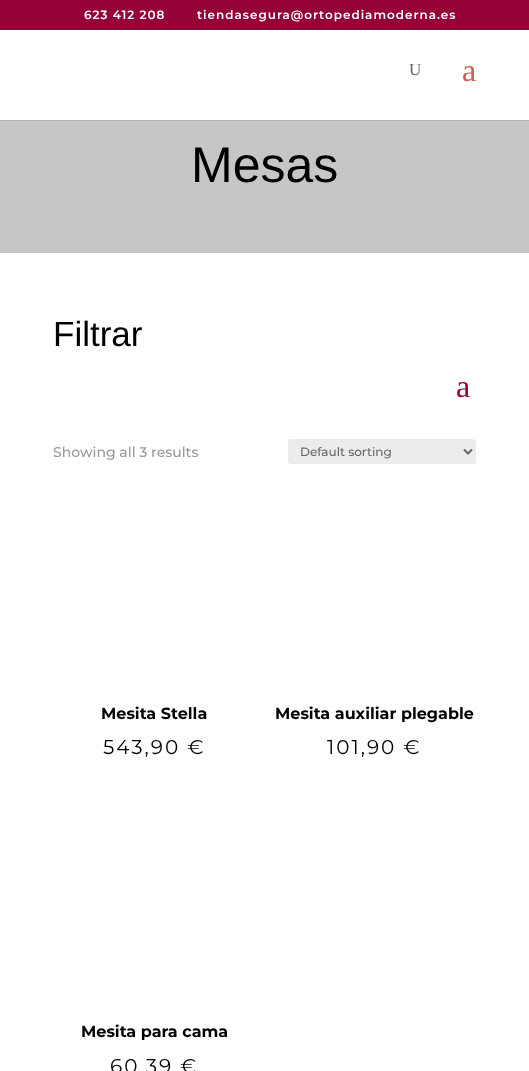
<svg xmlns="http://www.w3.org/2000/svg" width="529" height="1071">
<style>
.a{font:100 12px 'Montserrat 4';letter-spacing:1px;fill:#fff}
.b{font:17px Liberation Serif;fill:#666}
.c{font:32px Liberation Serif;fill:#cd5c5c}
.d{font:50px Liberation Sans;fill:#000}
.e{font:35px Liberation Sans;fill:#000}
.f{font:32px Liberation Serif;fill:#940237}
.g{font:100 14px Montserrat;fill:#999}
.h{font:100 12px Montserrat;fill:#666}
.i{font:100 16px 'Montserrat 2';fill:#000}
.j{font:100 20px 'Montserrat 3';letter-spacing:2px;fill:#000}
</style>
<rect width="100%" height="100%" fill="#fff"/>
<path fill="#940237" d="M0 0h529v30H0z"/>
<path fill="#b2b2b2" d="M0 120h529v1H0z"/>
<path fill="#c6c6c6" d="M0 121h529v132H0z"/>
<rect fill="#ececec" x="288" y="439" width="188" height="25" rx="3"/>
<path fill="none" stroke="#666" stroke-width="2" d="M464 449.5l4 4l4-4"/>
<text class="a" x="84" y="19">623 412 208</text>
<text class="a" x="197" y="19">tiendasegura@ortopediamoderna.es</text>
<text class="b" x="409" y="75">U</text>
<text class="c" x="462" y="81">a</text>
<text class="d" x="191" y="182">Mesas</text>
<text class="e" x="53" y="346">Filtrar</text>
<text class="f" x="456" y="397">a</text>
<text class="g" x="53" y="457">Showing all 3 results</text>
<text class="h" x="300" y="456">Default sorting</text>
<text class="i" x="101" y="719">Mesita Stella</text>
<text class="j" x="103" y="754">543,90 €</text>
<text class="i" x="275" y="719">Mesita auxiliar plegable</text>
<text class="j" x="327" y="754">101,90 €</text>
<text class="i" x="81" y="1037">Mesita para cama</text>
<text class="j" x="110" y="1073">60,39 €</text>
</svg>
